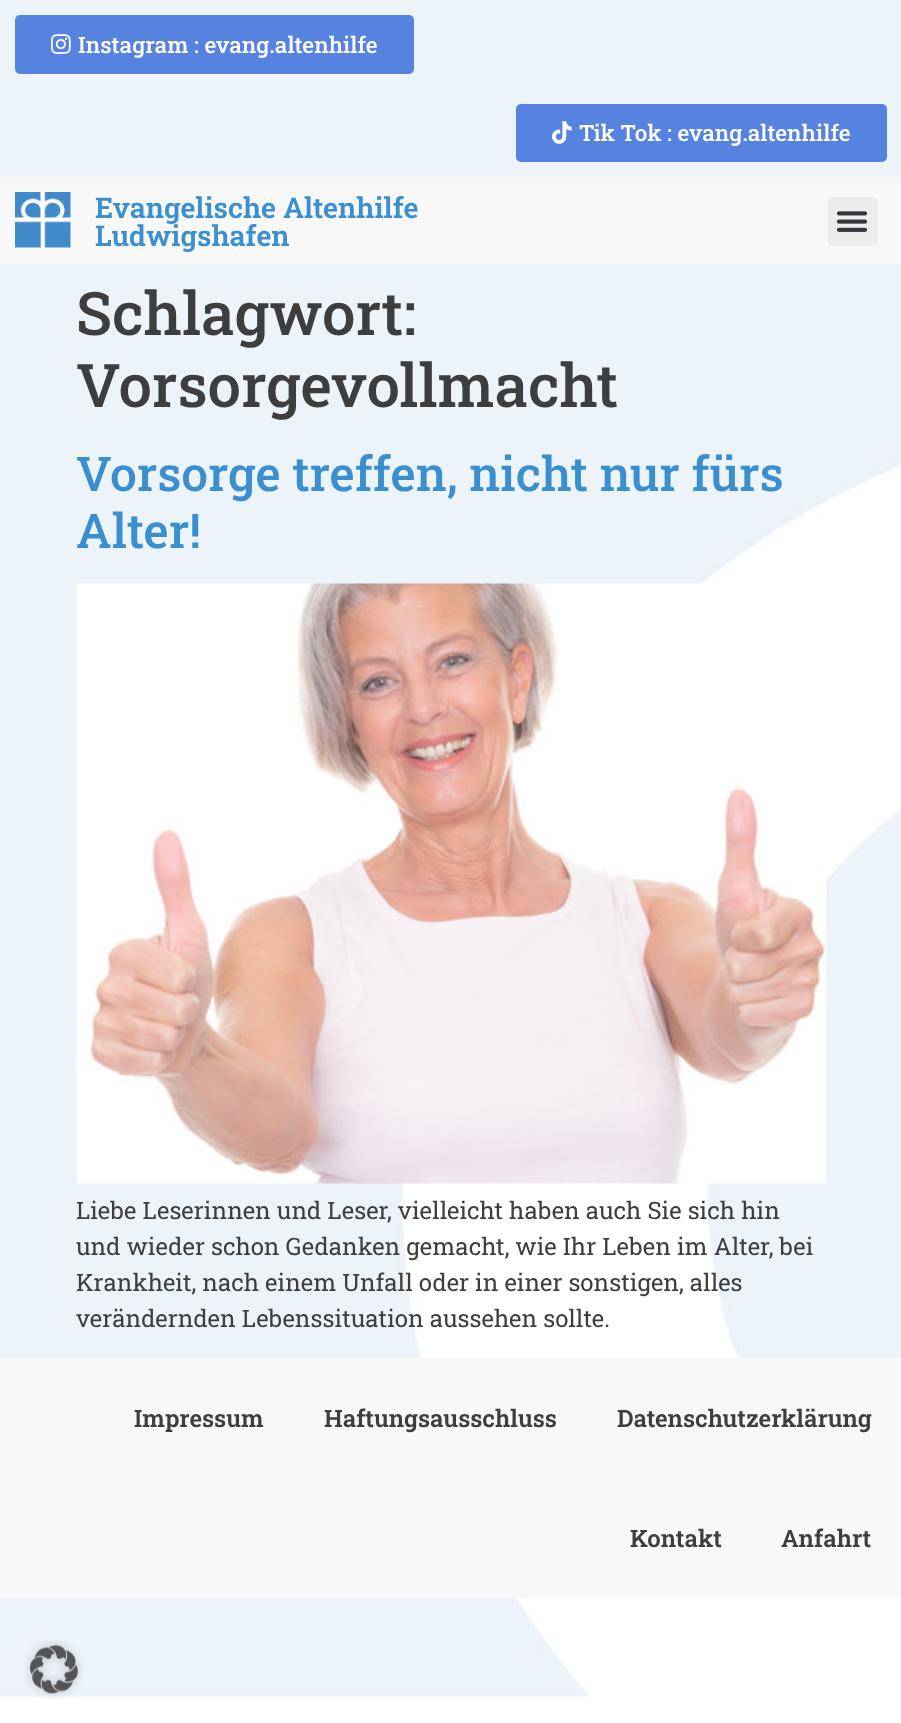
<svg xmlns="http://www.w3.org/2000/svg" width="901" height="1723">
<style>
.a{font:500 22.5px Roboto Slab;fill:#fff}
.b{font:600 28.5px Roboto Slab;fill:#3a8fd0}
.c{font:500 60px Roboto Slab;fill:#3e3e3e}
.d{font:500 48px Roboto Slab;fill:#3a8fd0}
.e{font:24px Roboto Slab;fill:#3e3e3e}
.f{font:600 24px Roboto Slab;fill:#3e3e3e}
</style>
<rect width="100%" height="100%" fill="#fff"/>
<image href="1.png" x="0" y="0" width="901" height="1698"/>
<rect fill="#5683df" x="15" y="15" width="399" height="59" rx="5"/>
<image href="2.png" x="51" y="34" width="20" height="20"/>
<rect fill="#5683df" x="516" y="104" width="371" height="58" rx="5"/>
<image href="3.png" x="552" y="121" width="20" height="23"/>
<path fill="#f8f8f8" d="M0 177h901v87H0z"/>
<image href="4.png" x="15" y="192" width="56" height="56"/>
<rect fill="#ececec" x="828" y="197" width="50" height="49" rx="5"/>
<image href="5.png" x="836" y="211" width="32" height="21"/>
<image href="6.png" x="76" y="583" width="751" height="601"/>
<path fill="#f8f8f8" d="M0 1358h901v240H0z"/>
<image href="7.png" x="24" y="1640" width="60" height="59"/>
<text class="a" x="78" y="53">Instagram : evang.altenhilfe</text>
<text class="a" x="579" y="141">Tik Tok : evang.altenhilfe</text>
<text class="b" x="95" y="218">Evangelische Altenhilfe</text>
<text class="b" x="95" y="246">Ludwigshafen</text>
<text class="c" x="76" y="335">Schlagwort:</text>
<text class="c" x="76" y="407">Vorsorgevollmacht</text>
<text class="d" x="76" y="491">Vorsorge treffen, nicht nur fürs</text>
<text class="d" x="76" y="548">Alter!</text>
<text class="e" x="76" y="1219">Liebe Leserinnen und Leser, vielleicht haben auch Sie sich hin</text>
<text class="e" x="76" y="1255">und wieder schon Gedanken gemacht, wie Ihr Leben im Alter, bei</text>
<text class="e" x="76" y="1291">Krankheit, nach einem Unfall oder in einer sonstigen, alles</text>
<text class="e" x="76" y="1327">verändernden Lebenssituation aussehen sollte.</text>
<text class="f" x="134" y="1427">Impressum</text>
<text class="f" x="324" y="1427">Haftungsausschluss</text>
<text class="f" x="617" y="1427">Datenschutzerklärung</text>
<text class="f" x="630" y="1547">Kontakt</text>
<text class="f" x="781" y="1547">Anfahrt</text>
</svg>
